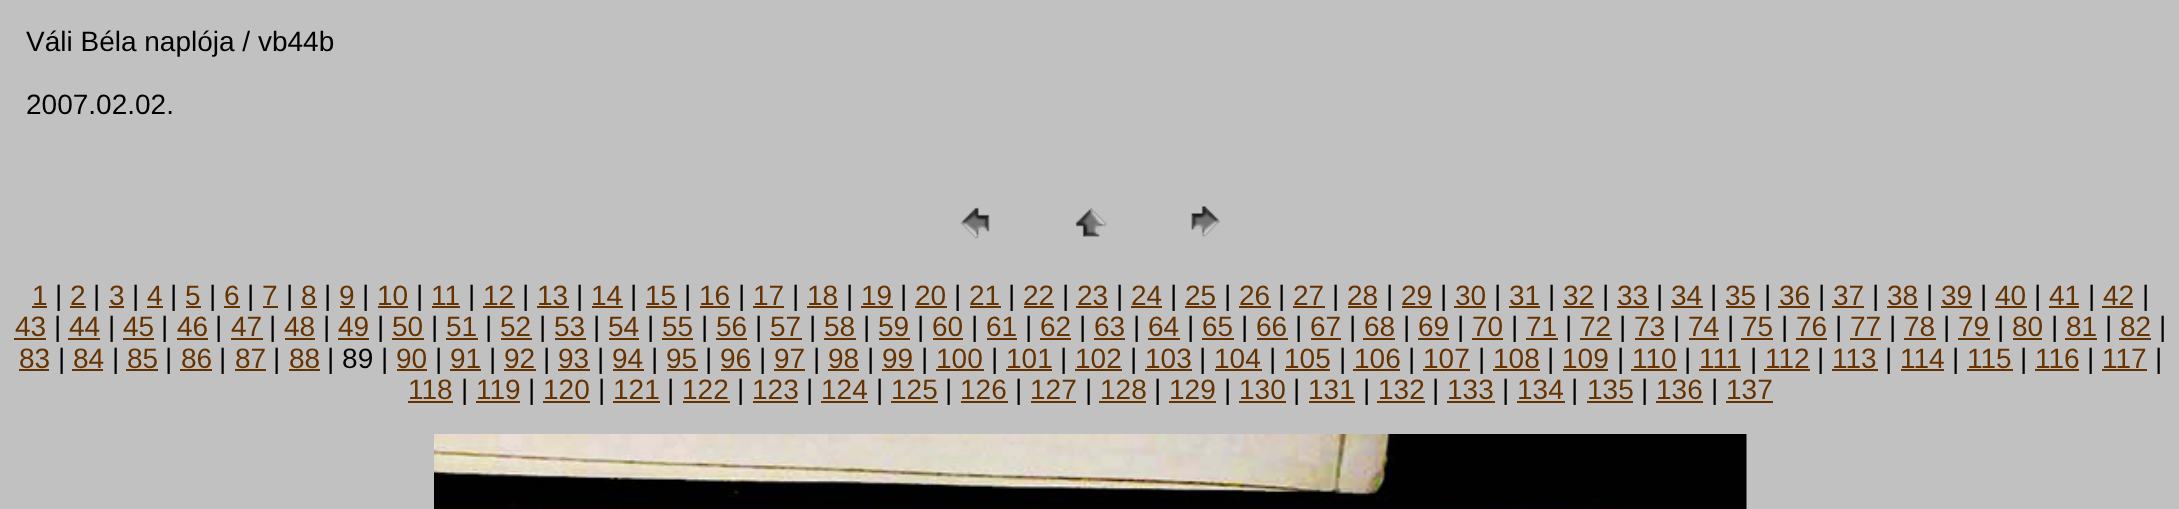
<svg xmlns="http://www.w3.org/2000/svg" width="2179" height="509">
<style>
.a{font:28px Liberation Sans;fill:#000}
.b{font:28px Liberation Sans;fill:#630}
</style>
<rect width="100%" height="100%" fill="#c1c1c1"/>
<image href="1.png" x="960" y="207" width="30" height="32"/>
<image href="2.png" x="1075" y="208" width="32" height="29"/>
<image href="3.png" x="1191" y="206" width="30" height="31"/>
<path fill="#630" d="M32 306h15v2H32z"/>
<path fill="#630" d="M70 306h16v2H70z"/>
<path fill="#630" d="M109 306h15v2H109z"/>
<path fill="#630" d="M147 306h16v2H147z"/>
<path fill="#630" d="M186 306h15v2H186z"/>
<path fill="#630" d="M224 306h16v2H224z"/>
<path fill="#630" d="M263 306h15v2H263z"/>
<path fill="#630" d="M301 306h16v2H301z"/>
<path fill="#630" d="M340 306h15v2H340z"/>
<path fill="#630" d="M378 306h30v2H378z"/>
<path fill="#630" d="M432 306h28v2H432z"/>
<path fill="#630" d="M483 306h32v2H483z"/>
<path fill="#630" d="M537 306h32v2H537z"/>
<path fill="#630" d="M592 306h31v2H592z"/>
<path fill="#630" d="M646 306h31v2H646z"/>
<path fill="#630" d="M700 306h30v2H700z"/>
<path fill="#630" d="M753 306h31v2H753z"/>
<path fill="#630" d="M807 306h31v2H807z"/>
<path fill="#630" d="M861 306h32v2H861z"/>
<path fill="#630" d="M915 306h32v2H915z"/>
<path fill="#630" d="M970 306h31v2H970z"/>
<path fill="#630" d="M1024 306h30v2H1024z"/>
<path fill="#630" d="M1076 306h32v2H1076z"/>
<path fill="#630" d="M1131 306h31v2H1131z"/>
<path fill="#630" d="M1185 306h31v2H1185z"/>
<path fill="#630" d="M1239 306h32v2H1239z"/>
<path fill="#630" d="M1293 306h32v2H1293z"/>
<path fill="#630" d="M1348 306h29v2H1348z"/>
<path fill="#630" d="M1402 306h30v2H1402z"/>
<path fill="#630" d="M1454 306h32v2H1454z"/>
<path fill="#630" d="M1509 306h31v2H1509z"/>
<path fill="#630" d="M1563 306h31v2H1563z"/>
<path fill="#630" d="M1617 306h32v2H1617z"/>
<path fill="#630" d="M1671 306h32v2H1671z"/>
<path fill="#630" d="M1726 306h29v2H1726z"/>
<path fill="#630" d="M1778 306h32v2H1778z"/>
<path fill="#630" d="M1832 306h32v2H1832z"/>
<path fill="#630" d="M1887 306h31v2H1887z"/>
<path fill="#630" d="M1941 306h31v2H1941z"/>
<path fill="#630" d="M1995 306h32v2H1995z"/>
<path fill="#630" d="M2049 306h30v2H2049z"/>
<path fill="#630" d="M2102 306h31v2H2102z"/>
<path fill="#630" d="M14 338h32v2H14z"/>
<path fill="#630" d="M68 338h32v2H68z"/>
<path fill="#630" d="M123 338h31v2H123z"/>
<path fill="#630" d="M177 338h31v2H177z"/>
<path fill="#630" d="M231 338h32v2H231z"/>
<path fill="#630" d="M285 338h30v2H285z"/>
<path fill="#630" d="M338 338h31v2H338z"/>
<path fill="#630" d="M392 338h32v2H392z"/>
<path fill="#630" d="M446 338h32v2H446z"/>
<path fill="#630" d="M501 338h31v2H501z"/>
<path fill="#630" d="M555 338h31v2H555z"/>
<path fill="#630" d="M609 338h30v2H609z"/>
<path fill="#630" d="M662 338h31v2H662z"/>
<path fill="#630" d="M716 338h31v2H716z"/>
<path fill="#630" d="M770 338h32v2H770z"/>
<path fill="#630" d="M824 338h32v2H824z"/>
<path fill="#630" d="M879 338h31v2H879z"/>
<path fill="#630" d="M933 338h30v2H933z"/>
<path fill="#630" d="M987 338h30v2H987z"/>
<path fill="#630" d="M1040 338h31v2H1040z"/>
<path fill="#630" d="M1094 338h31v2H1094z"/>
<path fill="#630" d="M1148 338h32v2H1148z"/>
<path fill="#630" d="M1202 338h32v2H1202z"/>
<path fill="#630" d="M1257 338h31v2H1257z"/>
<path fill="#630" d="M1311 338h30v2H1311z"/>
<path fill="#630" d="M1363 338h32v2H1363z"/>
<path fill="#630" d="M1418 338h31v2H1418z"/>
<path fill="#630" d="M1472 338h31v2H1472z"/>
<path fill="#630" d="M1526 338h32v2H1526z"/>
<path fill="#630" d="M1580 338h32v2H1580z"/>
<path fill="#630" d="M1635 338h29v2H1635z"/>
<path fill="#630" d="M1689 338h30v2H1689z"/>
<path fill="#630" d="M1741 338h32v2H1741z"/>
<path fill="#630" d="M1796 338h31v2H1796z"/>
<path fill="#630" d="M1850 338h31v2H1850z"/>
<path fill="#630" d="M1904 338h32v2H1904z"/>
<path fill="#630" d="M1958 338h32v2H1958z"/>
<path fill="#630" d="M2013 338h29v2H2013z"/>
<path fill="#630" d="M2065 338h32v2H2065z"/>
<path fill="#630" d="M2119 338h32v2H2119z"/>
<path fill="#630" d="M19 369h30v2H19z"/>
<path fill="#630" d="M72 369h31v2H72z"/>
<path fill="#630" d="M126 369h32v2H126z"/>
<path fill="#630" d="M180 369h32v2H180z"/>
<path fill="#630" d="M235 369h31v2H235z"/>
<path fill="#630" d="M289 369h31v2H289z"/>
<path fill="#630" d="M397 369h30v2H397z"/>
<path fill="#630" d="M450 369h31v2H450z"/>
<path fill="#630" d="M504 369h32v2H504z"/>
<path fill="#630" d="M558 369h32v2H558z"/>
<path fill="#630" d="M613 369h31v2H613z"/>
<path fill="#630" d="M667 369h31v2H667z"/>
<path fill="#630" d="M721 369h30v2H721z"/>
<path fill="#630" d="M774 369h31v2H774z"/>
<path fill="#630" d="M828 369h31v2H828z"/>
<path fill="#630" d="M882 369h32v2H882z"/>
<path fill="#630" d="M936 369h48v2H936z"/>
<path fill="#630" d="M1006 369h46v2H1006z"/>
<path fill="#630" d="M1075 369h47v2H1075z"/>
<path fill="#630" d="M1145 369h47v2H1145z"/>
<path fill="#630" d="M1215 369h47v2H1215z"/>
<path fill="#630" d="M1285 369h45v2H1285z"/>
<path fill="#630" d="M1353 369h47v2H1353z"/>
<path fill="#630" d="M1423 369h47v2H1423z"/>
<path fill="#630" d="M1493 369h47v2H1493z"/>
<path fill="#630" d="M1563 369h45v2H1563z"/>
<path fill="#630" d="M1631 369h46v2H1631z"/>
<path fill="#630" d="M1699 369h42v2H1699z"/>
<path fill="#630" d="M1764 369h46v2H1764z"/>
<path fill="#630" d="M1832 369h46v2H1832z"/>
<path fill="#630" d="M1901 369h43v2H1901z"/>
<path fill="#630" d="M1967 369h46v2H1967z"/>
<path fill="#630" d="M2035 369h44v2H2035z"/>
<path fill="#630" d="M2102 369h45v2H2102z"/>
<path fill="#630" d="M408 401h45v2H408z"/>
<path fill="#630" d="M476 401h44v2H476z"/>
<path fill="#630" d="M543 401h47v2H543z"/>
<path fill="#630" d="M613 401h47v2H613z"/>
<path fill="#630" d="M683 401h47v2H683z"/>
<path fill="#630" d="M753 401h45v2H753z"/>
<path fill="#630" d="M821 401h47v2H821z"/>
<path fill="#630" d="M891 401h47v2H891z"/>
<path fill="#630" d="M961 401h47v2H961z"/>
<path fill="#630" d="M1031 401h45v2H1031z"/>
<path fill="#630" d="M1099 401h47v2H1099z"/>
<path fill="#630" d="M1169 401h47v2H1169z"/>
<path fill="#630" d="M1239 401h47v2H1239z"/>
<path fill="#630" d="M1309 401h46v2H1309z"/>
<path fill="#630" d="M1377 401h48v2H1377z"/>
<path fill="#630" d="M1447 401h48v2H1447z"/>
<path fill="#630" d="M1517 401h48v2H1517z"/>
<path fill="#630" d="M1587 401h46v2H1587z"/>
<path fill="#630" d="M1656 401h47v2H1656z"/>
<path fill="#630" d="M1726 401h47v2H1726z"/>
<image href="4.png" x="434" y="434" width="1313" height="75"/>
<text class="a" x="26" y="51">Váli Béla naplója / vb44b</text>
<text class="a" x="26" y="114">2007.02.02.</text>
<text class="b" x="32" y="305">1</text>
<text class="a" x="55" y="305">|</text>
<text class="b" x="70" y="305">2</text>
<text class="a" x="93" y="305">|</text>
<text class="b" x="109" y="305">3</text>
<text class="a" x="132" y="305">|</text>
<text class="b" x="147" y="305">4</text>
<text class="a" x="170" y="305">|</text>
<text class="b" x="185" y="305">5</text>
<text class="a" x="209" y="305">|</text>
<text class="b" x="224" y="305">6</text>
<text class="a" x="247" y="305">|</text>
<text class="b" x="262" y="305">7</text>
<text class="a" x="286" y="305">|</text>
<text class="b" x="301" y="305">8</text>
<text class="a" x="324" y="305">|</text>
<text class="b" x="339" y="305">9</text>
<text class="a" x="362" y="305">|</text>
<text class="b" x="377" y="305">10</text>
<text class="a" x="416" y="305">|</text>
<text class="b" x="431" y="305">11</text>
<text class="a" x="468" y="305">|</text>
<text class="b" x="483" y="305">12</text>
<text class="a" x="522" y="305">|</text>
<text class="b" x="537" y="305">13</text>
<text class="a" x="576" y="305">|</text>
<text class="b" x="591" y="305">14</text>
<text class="a" x="630" y="305">|</text>
<text class="b" x="645" y="305">15</text>
<text class="a" x="684" y="305">|</text>
<text class="b" x="699" y="305">16</text>
<text class="a" x="738" y="305">|</text>
<text class="b" x="753" y="305">17</text>
<text class="a" x="792" y="305">|</text>
<text class="b" x="807" y="305">18</text>
<text class="a" x="846" y="305">|</text>
<text class="b" x="861" y="305">19</text>
<text class="a" x="900" y="305">|</text>
<text class="b" x="915" y="305">20</text>
<text class="a" x="954" y="305">|</text>
<text class="b" x="969" y="305">21</text>
<text class="a" x="1008" y="305">|</text>
<text class="b" x="1023" y="305">22</text>
<text class="a" x="1062" y="305">|</text>
<text class="b" x="1077" y="305">23</text>
<text class="a" x="1116" y="305">|</text>
<text class="b" x="1131" y="305">24</text>
<text class="a" x="1170" y="305">|</text>
<text class="b" x="1185" y="305">25</text>
<text class="a" x="1224" y="305">|</text>
<text class="b" x="1239" y="305">26</text>
<text class="a" x="1278" y="305">|</text>
<text class="b" x="1293" y="305">27</text>
<text class="a" x="1332" y="305">|</text>
<text class="b" x="1347" y="305">28</text>
<text class="a" x="1386" y="305">|</text>
<text class="b" x="1401" y="305">29</text>
<text class="a" x="1440" y="305">|</text>
<text class="b" x="1455" y="305">30</text>
<text class="a" x="1494" y="305">|</text>
<text class="b" x="1509" y="305">31</text>
<text class="a" x="1548" y="305">|</text>
<text class="b" x="1563" y="305">32</text>
<text class="a" x="1602" y="305">|</text>
<text class="b" x="1617" y="305">33</text>
<text class="a" x="1656" y="305">|</text>
<text class="b" x="1671" y="305">34</text>
<text class="a" x="1710" y="305">|</text>
<text class="b" x="1725" y="305">35</text>
<text class="a" x="1764" y="305">|</text>
<text class="b" x="1779" y="305">36</text>
<text class="a" x="1818" y="305">|</text>
<text class="b" x="1833" y="305">37</text>
<text class="a" x="1872" y="305">|</text>
<text class="b" x="1887" y="305">38</text>
<text class="a" x="1926" y="305">|</text>
<text class="b" x="1941" y="305">39</text>
<text class="a" x="1980" y="305">|</text>
<text class="b" x="1995" y="305">40</text>
<text class="a" x="2034" y="305">|</text>
<text class="b" x="2049" y="305">41</text>
<text class="a" x="2088" y="305">|</text>
<text class="b" x="2103" y="305">42</text>
<text class="a" x="2142" y="305">|</text>
<text class="b" x="15" y="336">43</text>
<text class="a" x="54" y="336">|</text>
<text class="b" x="69" y="336">44</text>
<text class="a" x="108" y="336">|</text>
<text class="b" x="123" y="336">45</text>
<text class="a" x="161" y="336">|</text>
<text class="b" x="177" y="336">46</text>
<text class="a" x="215" y="336">|</text>
<text class="b" x="231" y="336">47</text>
<text class="a" x="269" y="336">|</text>
<text class="b" x="284" y="336">48</text>
<text class="a" x="323" y="336">|</text>
<text class="b" x="338" y="336">49</text>
<text class="a" x="377" y="336">|</text>
<text class="b" x="392" y="336">50</text>
<text class="a" x="431" y="336">|</text>
<text class="b" x="446" y="336">51</text>
<text class="a" x="485" y="336">|</text>
<text class="b" x="500" y="336">52</text>
<text class="a" x="539" y="336">|</text>
<text class="b" x="554" y="336">53</text>
<text class="a" x="593" y="336">|</text>
<text class="b" x="608" y="336">54</text>
<text class="a" x="647" y="336">|</text>
<text class="b" x="662" y="336">55</text>
<text class="a" x="701" y="336">|</text>
<text class="b" x="716" y="336">56</text>
<text class="a" x="755" y="336">|</text>
<text class="b" x="770" y="336">57</text>
<text class="a" x="809" y="336">|</text>
<text class="b" x="824" y="336">58</text>
<text class="a" x="863" y="336">|</text>
<text class="b" x="878" y="336">59</text>
<text class="a" x="917" y="336">|</text>
<text class="b" x="932" y="336">60</text>
<text class="a" x="971" y="336">|</text>
<text class="b" x="986" y="336">61</text>
<text class="a" x="1025" y="336">|</text>
<text class="b" x="1040" y="336">62</text>
<text class="a" x="1079" y="336">|</text>
<text class="b" x="1094" y="336">63</text>
<text class="a" x="1133" y="336">|</text>
<text class="b" x="1148" y="336">64</text>
<text class="a" x="1187" y="336">|</text>
<text class="b" x="1202" y="336">65</text>
<text class="a" x="1241" y="336">|</text>
<text class="b" x="1256" y="336">66</text>
<text class="a" x="1295" y="336">|</text>
<text class="b" x="1310" y="336">67</text>
<text class="a" x="1349" y="336">|</text>
<text class="b" x="1364" y="336">68</text>
<text class="a" x="1403" y="336">|</text>
<text class="b" x="1418" y="336">69</text>
<text class="a" x="1457" y="336">|</text>
<text class="b" x="1472" y="336">70</text>
<text class="a" x="1511" y="336">|</text>
<text class="b" x="1526" y="336">71</text>
<text class="a" x="1565" y="336">|</text>
<text class="b" x="1580" y="336">72</text>
<text class="a" x="1619" y="336">|</text>
<text class="b" x="1634" y="336">73</text>
<text class="a" x="1673" y="336">|</text>
<text class="b" x="1688" y="336">74</text>
<text class="a" x="1727" y="336">|</text>
<text class="b" x="1742" y="336">75</text>
<text class="a" x="1781" y="336">|</text>
<text class="b" x="1796" y="336">76</text>
<text class="a" x="1835" y="336">|</text>
<text class="b" x="1850" y="336">77</text>
<text class="a" x="1889" y="336">|</text>
<text class="b" x="1904" y="336">78</text>
<text class="a" x="1943" y="336">|</text>
<text class="b" x="1958" y="336">79</text>
<text class="a" x="1997" y="336">|</text>
<text class="b" x="2012" y="336">80</text>
<text class="a" x="2051" y="336">|</text>
<text class="b" x="2066" y="336">81</text>
<text class="a" x="2105" y="336">|</text>
<text class="b" x="2120" y="336">82</text>
<text class="a" x="2159" y="336">|</text>
<text class="b" x="19" y="368">83</text>
<text class="a" x="58" y="368">|</text>
<text class="b" x="73" y="368">84</text>
<text class="a" x="112" y="368">|</text>
<text class="b" x="127" y="368">85</text>
<text class="a" x="165" y="368">|</text>
<text class="b" x="181" y="368">86</text>
<text class="a" x="219" y="368">|</text>
<text class="b" x="235" y="368">87</text>
<text class="a" x="273" y="368">|</text>
<text class="b" x="289" y="368">88</text>
<text class="a" x="327" y="368">| 89 |</text>
<text class="b" x="396" y="368">90</text>
<text class="a" x="435" y="368">|</text>
<text class="b" x="450" y="368">91</text>
<text class="a" x="489" y="368">|</text>
<text class="b" x="504" y="368">92</text>
<text class="a" x="543" y="368">|</text>
<text class="b" x="558" y="368">93</text>
<text class="a" x="597" y="368">|</text>
<text class="b" x="612" y="368">94</text>
<text class="a" x="651" y="368">|</text>
<text class="b" x="666" y="368">95</text>
<text class="a" x="705" y="368">|</text>
<text class="b" x="720" y="368">96</text>
<text class="a" x="759" y="368">|</text>
<text class="b" x="774" y="368">97</text>
<text class="a" x="813" y="368">|</text>
<text class="b" x="828" y="368">98</text>
<text class="a" x="867" y="368">|</text>
<text class="b" x="882" y="368">99</text>
<text class="a" x="921" y="368">|</text>
<text class="b" x="936" y="368">100</text>
<text class="a" x="991" y="368">|</text>
<text class="b" x="1006" y="368">101</text>
<text class="a" x="1060" y="368">|</text>
<text class="b" x="1075" y="368">102</text>
<text class="a" x="1130" y="368">|</text>
<text class="b" x="1145" y="368">103</text>
<text class="a" x="1199" y="368">|</text>
<text class="b" x="1214" y="368">104</text>
<text class="a" x="1269" y="368">|</text>
<text class="b" x="1284" y="368">105</text>
<text class="a" x="1339" y="368">|</text>
<text class="b" x="1354" y="368">106</text>
<text class="a" x="1408" y="368">|</text>
<text class="b" x="1423" y="368">107</text>
<text class="a" x="1478" y="368">|</text>
<text class="b" x="1493" y="368">108</text>
<text class="a" x="1547" y="368">|</text>
<text class="b" x="1562" y="368">109</text>
<text class="a" x="1617" y="368">|</text>
<text class="b" x="1632" y="368">110</text>
<text class="a" x="1684" y="368">|</text>
<text class="b" x="1699" y="368">111</text>
<text class="a" x="1750" y="368">|</text>
<text class="b" x="1765" y="368">112</text>
<text class="a" x="1817" y="368">|</text>
<text class="b" x="1832" y="368">113</text>
<text class="a" x="1885" y="368">|</text>
<text class="b" x="1900" y="368">114</text>
<text class="a" x="1952" y="368">|</text>
<text class="b" x="1967" y="368">115</text>
<text class="a" x="2020" y="368">|</text>
<text class="b" x="2035" y="368">116</text>
<text class="a" x="2087" y="368">|</text>
<text class="b" x="2102" y="368">117</text>
<text class="a" x="2155" y="368">|</text>
<text class="b" x="408" y="399">118</text>
<text class="a" x="461" y="399">|</text>
<text class="b" x="476" y="399">119</text>
<text class="a" x="528" y="399">|</text>
<text class="b" x="543" y="399">120</text>
<text class="a" x="598" y="399">|</text>
<text class="b" x="613" y="399">121</text>
<text class="a" x="667" y="399">|</text>
<text class="b" x="682" y="399">122</text>
<text class="a" x="737" y="399">|</text>
<text class="b" x="752" y="399">123</text>
<text class="a" x="806" y="399">|</text>
<text class="b" x="821" y="399">124</text>
<text class="a" x="876" y="399">|</text>
<text class="b" x="891" y="399">125</text>
<text class="a" x="945" y="399">|</text>
<text class="b" x="960" y="399">126</text>
<text class="a" x="1015" y="399">|</text>
<text class="b" x="1030" y="399">127</text>
<text class="a" x="1085" y="399">|</text>
<text class="b" x="1100" y="399">128</text>
<text class="a" x="1154" y="399">|</text>
<text class="b" x="1169" y="399">129</text>
<text class="a" x="1224" y="399">|</text>
<text class="b" x="1239" y="399">130</text>
<text class="a" x="1293" y="399">|</text>
<text class="b" x="1308" y="399">131</text>
<text class="a" x="1363" y="399">|</text>
<text class="b" x="1378" y="399">132</text>
<text class="a" x="1432" y="399">|</text>
<text class="b" x="1447" y="399">133</text>
<text class="a" x="1502" y="399">|</text>
<text class="b" x="1517" y="399">134</text>
<text class="a" x="1571" y="399">|</text>
<text class="b" x="1587" y="399">135</text>
<text class="a" x="1641" y="399">|</text>
<text class="b" x="1656" y="399">136</text>
<text class="a" x="1711" y="399">|</text>
<text class="b" x="1726" y="399">137</text>
</svg>
